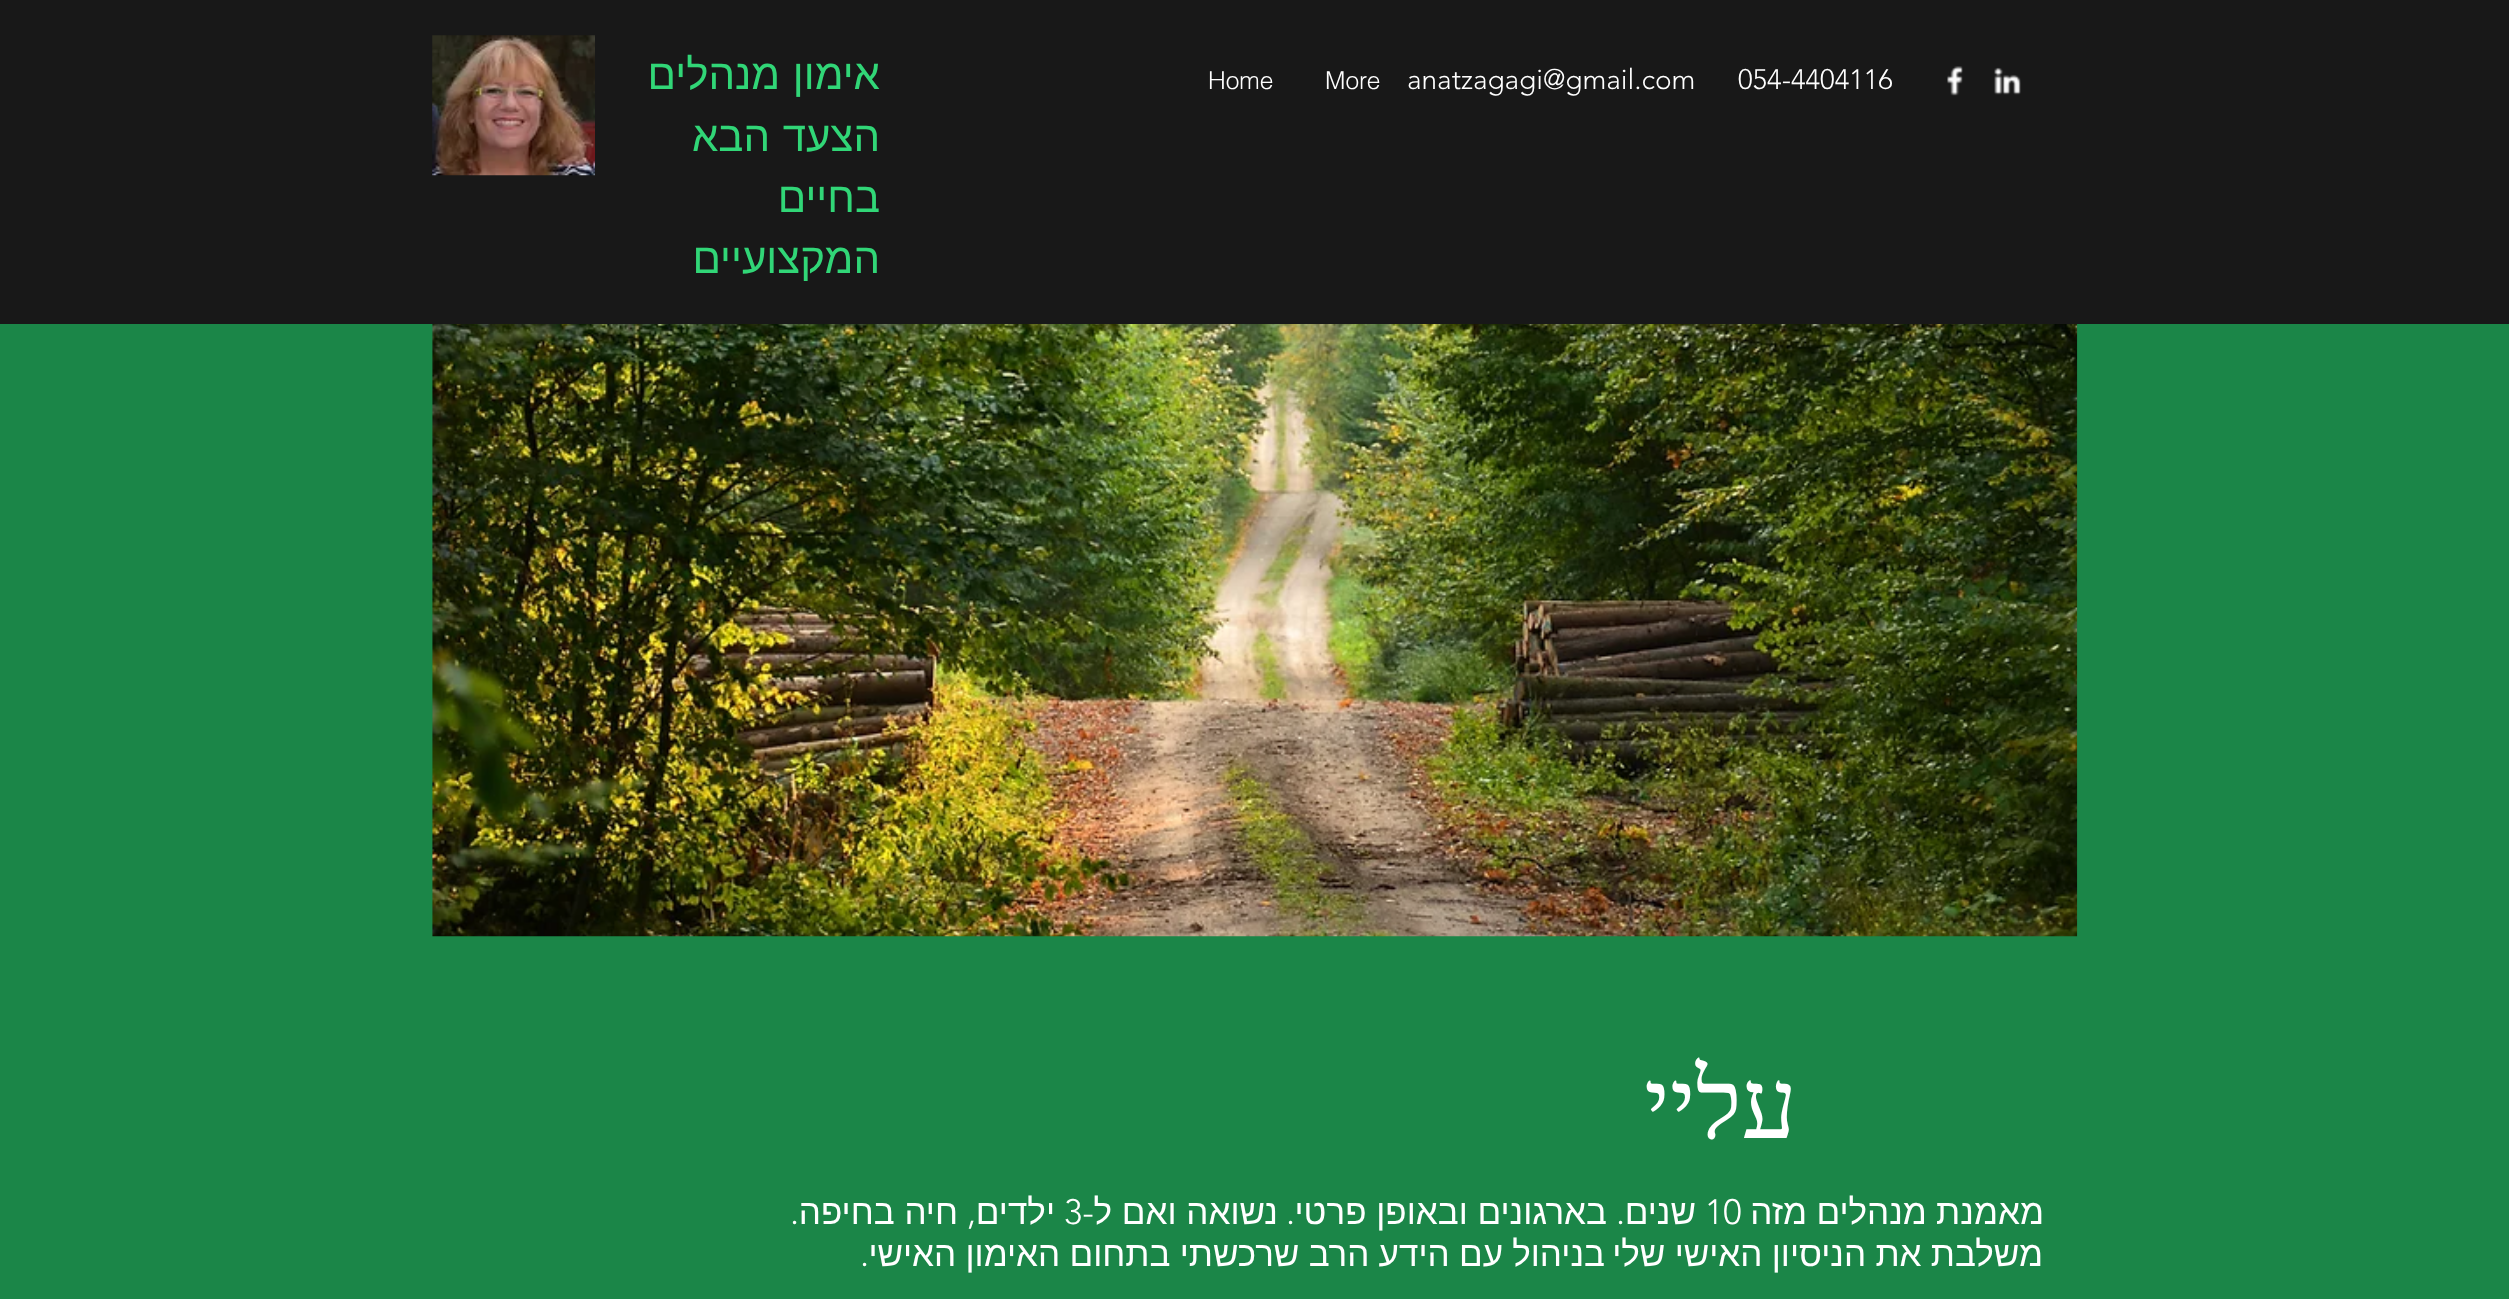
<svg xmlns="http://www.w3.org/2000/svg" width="2509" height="1299">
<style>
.a{font:300 28px 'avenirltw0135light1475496';fill:#fff}
.b{font:300 24.5px helvetica;fill:#fff}
.c{font:42px Liberation Sans;direction:rtl;fill:#31d677}
.d{font:98px Liberation Serif;direction:rtl;fill:#fff}
.e{font:35px Liberation Sans;direction:rtl;fill:#fff}
.f{font:300 35px 'avenirltw0135light1475496';fill:#fff}
.g{font:300 35px 'avenirltw0135light1475496';direction:rtl;fill:#fff}
</style>
<rect width="100%" height="100%" fill="#1b8648"/>
<path fill="#181818" d="M0 0h2509v324H0z"/>
<image href="1.png" x="1994" y="67" width="27" height="28"/>
<image href="2.png" x="1947" y="66" width="16" height="30"/>
<image href="3.png" x="432" y="35" width="163" height="141"/>
<image href="4.png" x="432" y="324" width="1646" height="613"/>
<text class="a" x="1738" y="89">054-4404116</text>
<text class="a" x="1407" y="89">anatzagagi@gmail.com</text>
<text class="b" x="1325" y="89">More</text>
<text class="b" x="1208" y="89">Home</text>
<text class="c" x="880" y="89" word-spacing="1">אימון מנהלים</text>
<text class="c" x="880" y="151" word-spacing="1">הצעד הבא</text>
<text class="c" x="880" y="212">בחיים</text>
<text class="c" x="880" y="273">המקצועיים</text>
<text class="d" x="1797" y="1138">עליי</text>
<text class="e" x="2044" y="1224" word-spacing="-0.5">מאמנת מנהלים מזה</text>
<text class="f" x="1705" y="1224">10</text>
<text class="e" x="1696" y="1224">שנים</text>
<text class="e" x="1607" y="1224">בארגונים ובאופן פרטי</text>
<text class="e" x="1278" y="1224">נשואה ואם ל</text>
<text class="g" x="1094" y="1224">-</text>
<text class="f" x="1064" y="1224">3</text>
<text class="e" x="1055" y="1224">ילדים</text>
<text class="e" x="958" y="1224">חיה בחיפה</text>
<text class="g" x="1625" y="1224">.</text>
<text class="g" x="1295" y="1224">.</text>
<text class="g" x="976" y="1224">,</text>
<text class="g" x="799" y="1224">.</text>
<text class="e" x="2043" y="1266" word-spacing="-0.5">משלבת את הניסיון האישי שלי</text>
<text class="e" x="1605" y="1266" word-spacing="-0.5">בניהול עם הידע הרב שרכשתי בתחום האימון האישי</text>
<text class="g" x="869" y="1266">.</text>
</svg>
